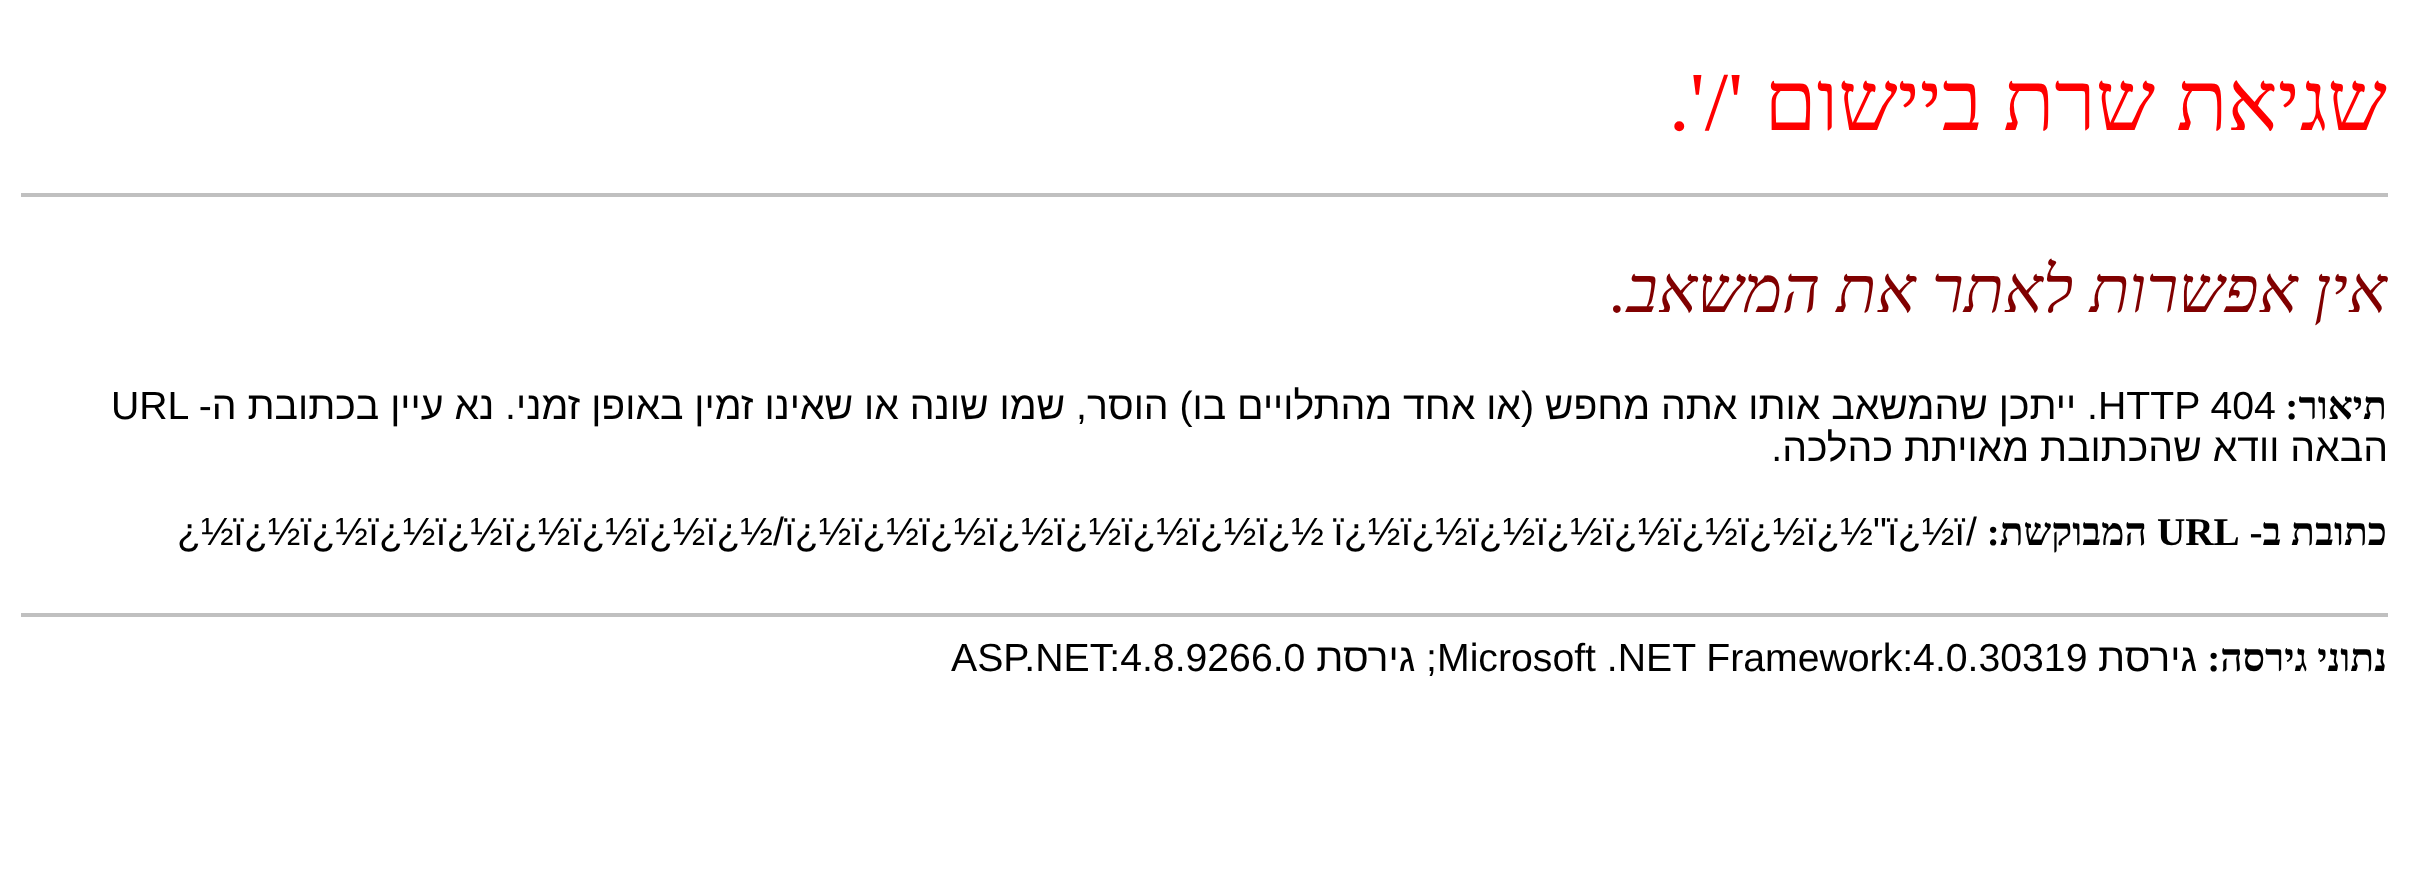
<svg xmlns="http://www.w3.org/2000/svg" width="2414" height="893">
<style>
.a{font:84px Liberation Serif;direction:rtl;fill:#f00}
.b{font:italic 65.25px Liberation Serif;direction:rtl;fill:#800000}
.c{font:bold 39.2px Liberation Serif;direction:rtl;fill:#000}
.d{font:39.2px Liberation Sans;fill:#000}
.e{font:39.2px Liberation Sans;direction:rtl;fill:#000}
.f{font:bold 39.2px Liberation Serif;fill:#000}
</style>
<rect width="100%" height="100%" fill="#fff"/>
<path fill="#c0c0c0" d="M21 193h2367v4H21z"/>
<path fill="#c0c0c0" d="M21 613h2367v4H21z"/>
<text class="a" x="2387" y="130">שגיאת שרת ביישום '/'.</text>
<text class="b" x="2387" y="312">אין אפשרות לאתר את המשאב.</text>
<text class="c" x="2387" y="419">תיאור:</text>
<text class="d" x="2098" y="419">HTTP 404</text>
<text class="e" x="2098" y="419">. ייתכן שהמשאב אותו אתה מחפש (או אחד מהתלויים בו) הוסר, שמו שונה או שאינו זמין באופן זמני. נא עיין בכתובת ה-</text>
<text class="d" x="111" y="419">URL</text>
<text class="e" x="2388" y="461">הבאה וודא שהכתובת מאויתת כהלכה.</text>
<text class="c" x="2387" y="545">כתובת ב-</text>
<text class="f" x="2157" y="545">URL</text>
<text class="c" x="2147" y="545">המבוקשת:</text>
<text class="d" x="233" y="545" word-spacing="-2">ï¿½ï¿½ï¿½ï¿½ï¿½ï¿½ï¿½ï¿½/ï¿½ï¿½ï¿½ï¿½ï¿½ï¿½ï¿½ï¿½ ï¿½ï¿½ï¿½ï¿½ï¿½ï¿½ï¿½ï¿½"ï¿½ï</text>
<text class="d" x="1966" y="545">/</text>
<text class="d" x="177" y="545">¿½</text>
<text class="c" x="2387" y="671">נתוני גירסה:</text>
<text class="e" x="2197" y="671">גירסת</text>
<text class="d" x="1437" y="671">Microsoft .NET Framework:4.0.30319</text>
<text class="e" x="1437" y="671">; גירסת</text>
<text class="d" x="951" y="671">ASP.NET:4.8.9266.0</text>
</svg>
